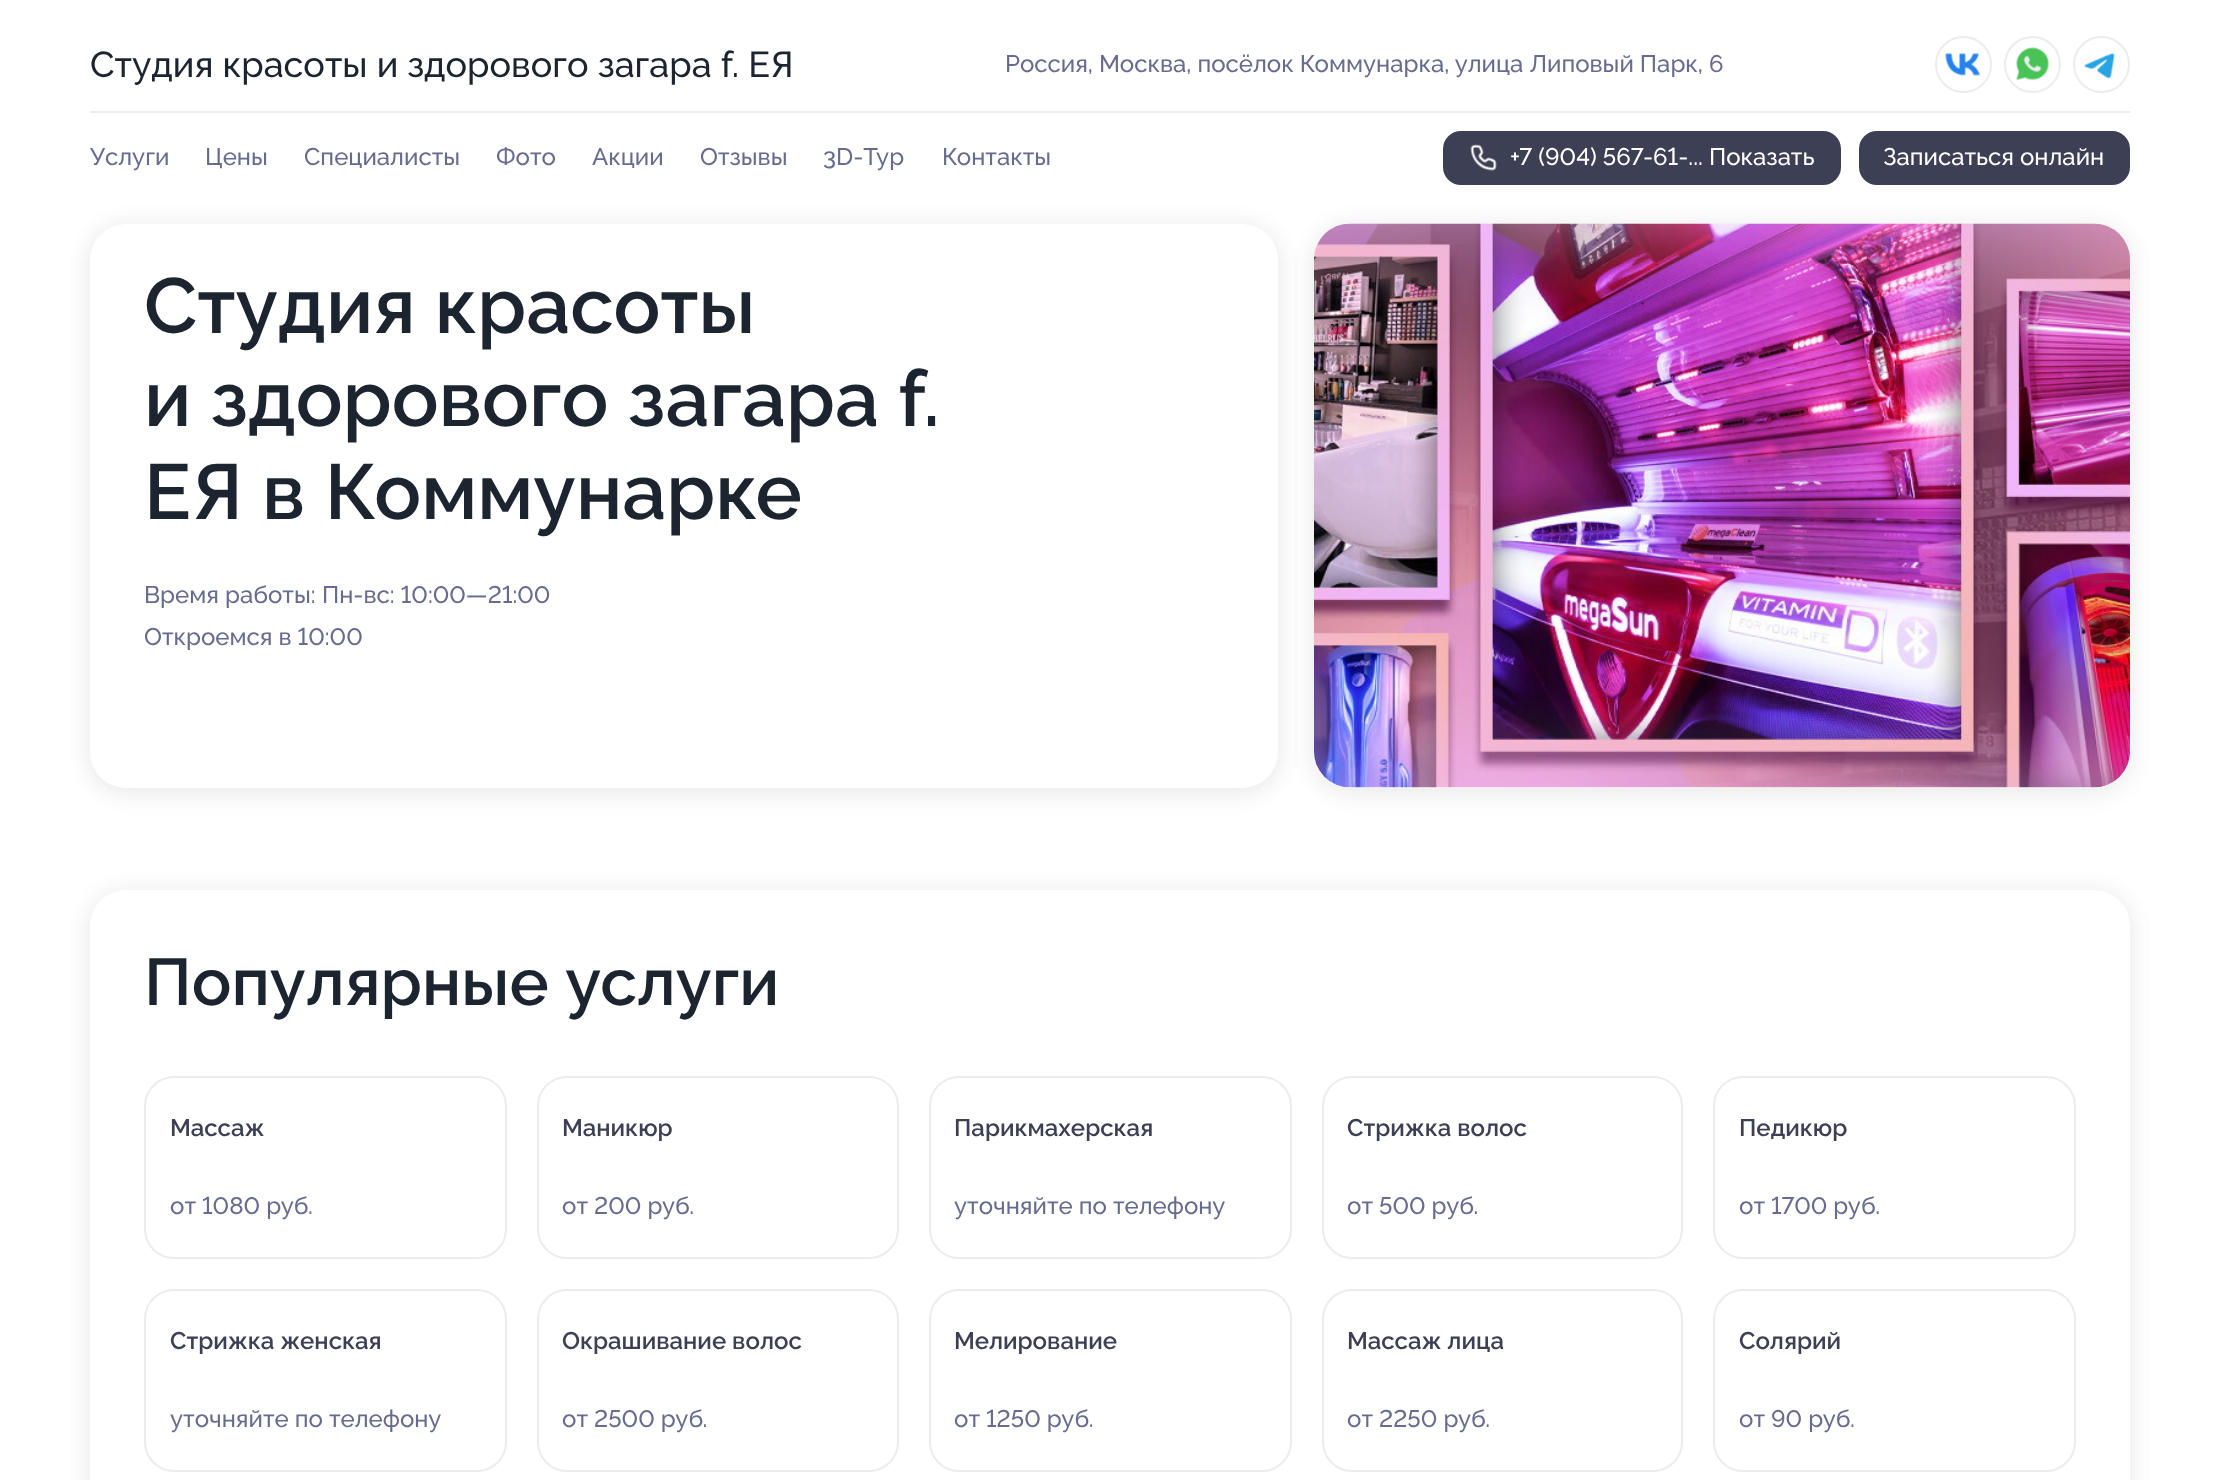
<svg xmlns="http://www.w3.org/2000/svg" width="2220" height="1480">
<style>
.a{font:500 36px Raleway;fill:#1c242f}
.b{font:500 24px Raleway;fill:#676b8f}
.c{font:500 24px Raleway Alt;fill:#fff}
.d{font:500 24px Raleway;fill:#fff}
.e{font:600 78px Raleway;fill:#1c242f}
.f{font:500 24px Raleway Alt;fill:#676b8f}
.g{font:600 66px Raleway;fill:#1c242f}
.h{font:600 24px Raleway;fill:#3d3f55}
</style>
<rect width="100%" height="100%" fill="#fff"/>
<path fill="#ececee" d="M90 111h2040v2H90z"/>
<circle fill="none" stroke="#ececee" stroke-width="2" cx="1963.5" cy="64.5" r="27.5"/>
<image href="1.png" x="1945" y="53" width="36" height="23"/>
<circle fill="none" stroke="#ececee" stroke-width="2" cx="2032.5" cy="64.5" r="27.5"/>
<image href="2.png" x="2016" y="47" width="33" height="34"/>
<circle fill="none" stroke="#ececee" stroke-width="2" cx="2101.5" cy="64.5" r="27.5"/>
<image href="3.png" x="2084" y="53" width="31" height="26"/>
<rect fill="#3d3f55" stroke="#3d3f55" stroke-width="2" x="1444" y="132" width="396" height="52" rx="17"/>
<image href="4.png" x="1470" y="144" width="27" height="27"/>
<rect fill="#3d3f55" stroke="#3d3f55" stroke-width="2" x="1860" y="132" width="269" height="52" rx="17"/>
<rect fill="#0000000d" filter="blur(12px)" x="90" y="224" width="1188" height="564" rx="36"/>
<rect fill="#0000000d" filter="blur(12px)" x="90" y="230" width="1188" height="564" rx="36"/>
<rect fill="#fff" x="90" y="224" width="1188" height="564" rx="36"/>
<rect fill="#0000000d" filter="blur(12px)" x="1314" y="224" width="816" height="564" rx="36"/>
<rect fill="#0000000d" filter="blur(12px)" x="1314" y="230" width="816" height="564" rx="36"/>
<rect fill="#fff" x="1314" y="224" width="816" height="564" rx="36"/>
<image href="5.png" x="1314" y="223" width="816" height="565"/>
<rect fill="#0000000d" filter="blur(12px)" x="90" y="890" width="2040" height="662" rx="36"/>
<rect fill="#0000000d" filter="blur(12px)" x="90" y="896" width="2040" height="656" rx="36"/>
<rect fill="#fff" x="90" y="890" width="2040" height="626" rx="36"/>
<rect fill="none" stroke="#ececee" stroke-width="2" x="145" y="1077" width="361" height="181" rx="29"/>
<rect fill="none" stroke="#ececee" stroke-width="2" x="538" y="1077" width="360" height="181" rx="29"/>
<rect fill="none" stroke="#ececee" stroke-width="2" x="930" y="1077" width="361" height="181" rx="29"/>
<rect fill="none" stroke="#ececee" stroke-width="2" x="1323" y="1077" width="359" height="181" rx="29"/>
<rect fill="none" stroke="#ececee" stroke-width="2" x="1714" y="1077" width="361" height="181" rx="29"/>
<rect fill="none" stroke="#ececee" stroke-width="2" x="145" y="1290" width="361" height="181" rx="29"/>
<rect fill="none" stroke="#ececee" stroke-width="2" x="538" y="1290" width="360" height="181" rx="29"/>
<rect fill="none" stroke="#ececee" stroke-width="2" x="930" y="1290" width="361" height="181" rx="29"/>
<rect fill="none" stroke="#ececee" stroke-width="2" x="1323" y="1290" width="359" height="181" rx="29"/>
<rect fill="none" stroke="#ececee" stroke-width="2" x="1714" y="1290" width="361" height="181" rx="29"/>
<text class="a" x="90" y="77">Студия красоты и здорового загара f. ЕЯ</text>
<text class="b" x="1005" y="72">Россия, Москва, посёлок Коммунарка, улица Липовый Парк, 6</text>
<text class="b" x="90" y="165">Услуги</text>
<text class="b" x="205" y="165">Цены</text>
<text class="b" x="304" y="165">Специалисты</text>
<text class="b" x="496" y="165">Фото</text>
<text class="b" x="592" y="165">Акции</text>
<text class="b" x="700" y="165">Отзывы</text>
<text class="b" x="823" y="165">3D-Тур</text>
<text class="b" x="942" y="165">Контакты</text>
<text class="c" x="1510" y="165">+7 (904) 567-61-...</text>
<text class="d" x="1709" y="165">Показать</text>
<text class="d" x="1883" y="165">Записаться онлайн</text>
<text class="e" x="144" y="333">Студия красоты</text>
<text class="e" x="144" y="426">и здорового загара f.</text>
<text class="e" x="144" y="519">ЕЯ в Коммунарке</text>
<text class="b" x="144" y="603">Время работы:</text>
<text class="f" x="322" y="603">Пн-вс: 10:00—21:00</text>
<text class="f" x="144" y="645">Откроемся в 10:00</text>
<text class="g" x="144" y="1005" word-spacing="2">Популярные услуги</text>
<text class="h" x="170" y="1136">Массаж</text>
<text class="f" x="170" y="1214">от 1080 руб.</text>
<text class="h" x="562" y="1136">Маникюр</text>
<text class="f" x="562" y="1214">от 200 руб.</text>
<text class="h" x="954" y="1136">Парикмахерская</text>
<text class="b" x="954" y="1214">уточняйте по телефону</text>
<text class="h" x="1347" y="1136">Стрижка волос</text>
<text class="f" x="1347" y="1214">от 500 руб.</text>
<text class="h" x="1739" y="1136">Педикюр</text>
<text class="f" x="1739" y="1214">от 1700 руб.</text>
<text class="h" x="170" y="1349">Стрижка женская</text>
<text class="b" x="170" y="1427">уточняйте по телефону</text>
<text class="h" x="562" y="1349">Окрашивание волос</text>
<text class="f" x="562" y="1427">от 2500 руб.</text>
<text class="h" x="954" y="1349">Мелирование</text>
<text class="f" x="954" y="1427">от 1250 руб.</text>
<text class="h" x="1347" y="1349">Массаж лица</text>
<text class="f" x="1347" y="1427">от 2250 руб.</text>
<text class="h" x="1739" y="1349">Солярий</text>
<text class="f" x="1739" y="1427">от 90 руб.</text>
</svg>
